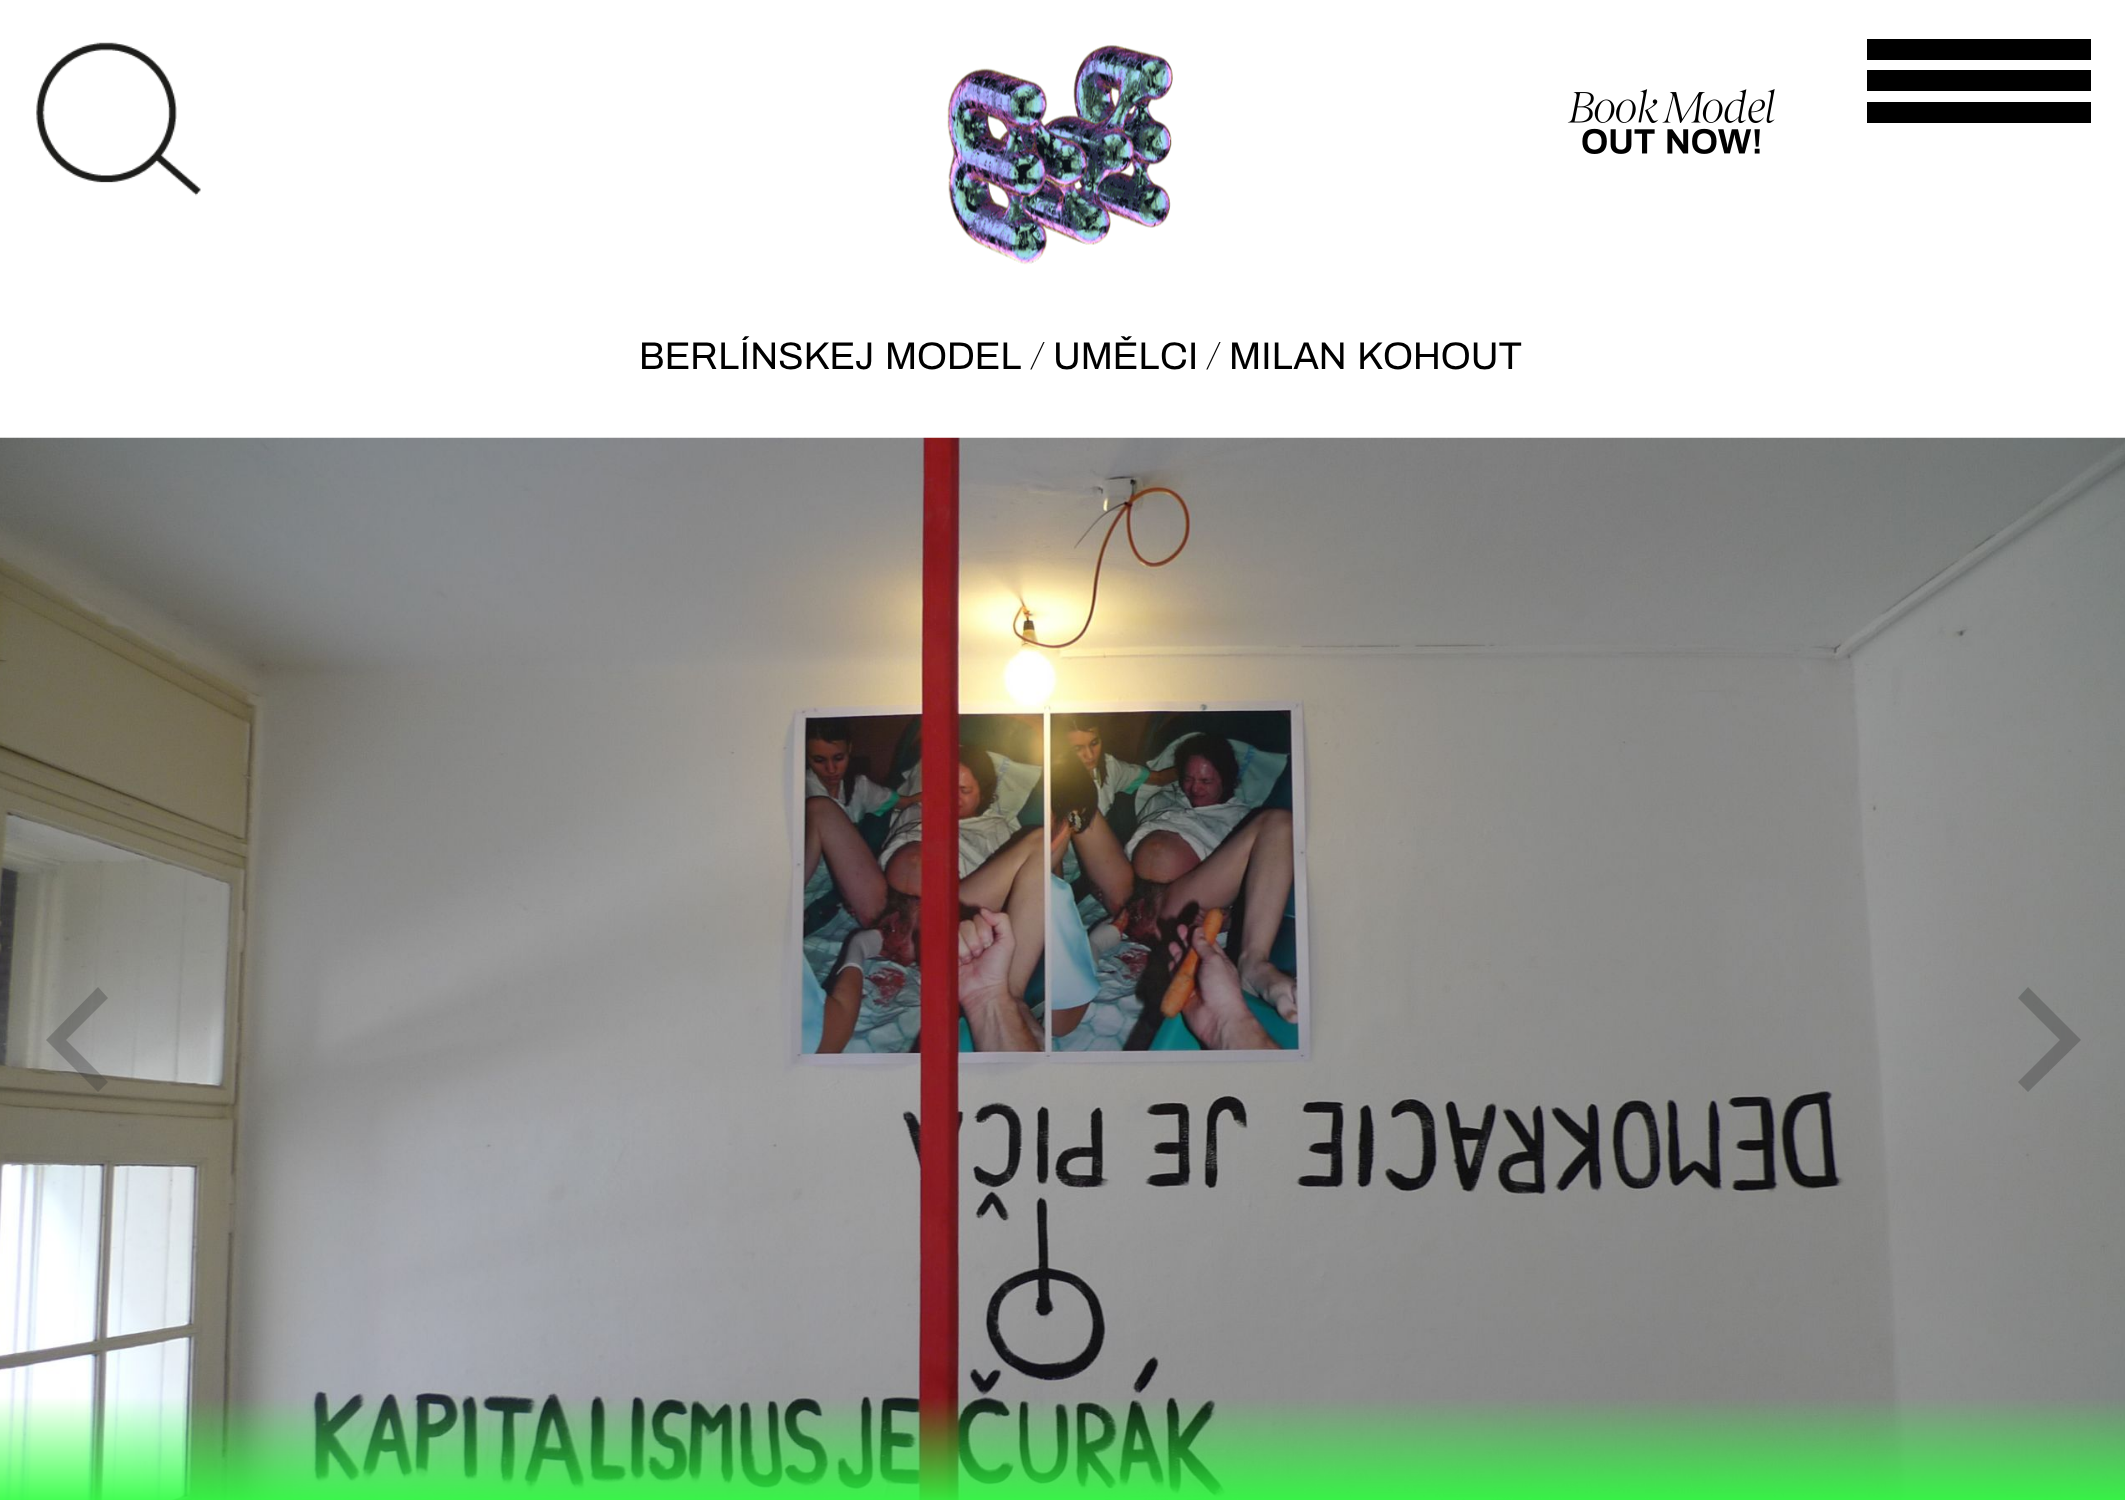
<svg xmlns="http://www.w3.org/2000/svg" width="2125" height="1500">
<style>
.a{font:38.5px Archivo;fill:#000}
.b{font:300 38.5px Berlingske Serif;fill:#000}
</style>
<rect width="100%" height="100%" fill="#fff"/>
<image href="1.png" x="36" y="42" width="165" height="154"/>
<image href="2.png" x="947" y="45" width="226" height="220"/>
<image href="3.png" x="1567" y="89" width="208" height="65"/>
<path fill="#000" d="M1867 39h224v21H1867z"/>
<path fill="#000" d="M1867 70h224v21H1867z"/>
<path fill="#000" d="M1867 102h224v21H1867z"/>
<image href="4.png" x="0" y="437" width="2125" height="1063"/>
<path fill="#3333334d" d="M46 1040l52 52l10-10l-42-42l42-42l-10-11z"/>
<path fill="#3333334d" d="M2081 1040l-53-53l-10 11l42 42l-42 42l10 10z"/>
<text class="a" x="639" y="369">BERLÍNSKEJ MODEL</text>
<text class="b" x="1030" y="369">/</text>
<text class="a" x="1053" y="369">UMĚLCI</text>
<text class="b" x="1206" y="369">/</text>
<text class="a" x="1229" y="369">MILAN KOHOUT</text>
</svg>
